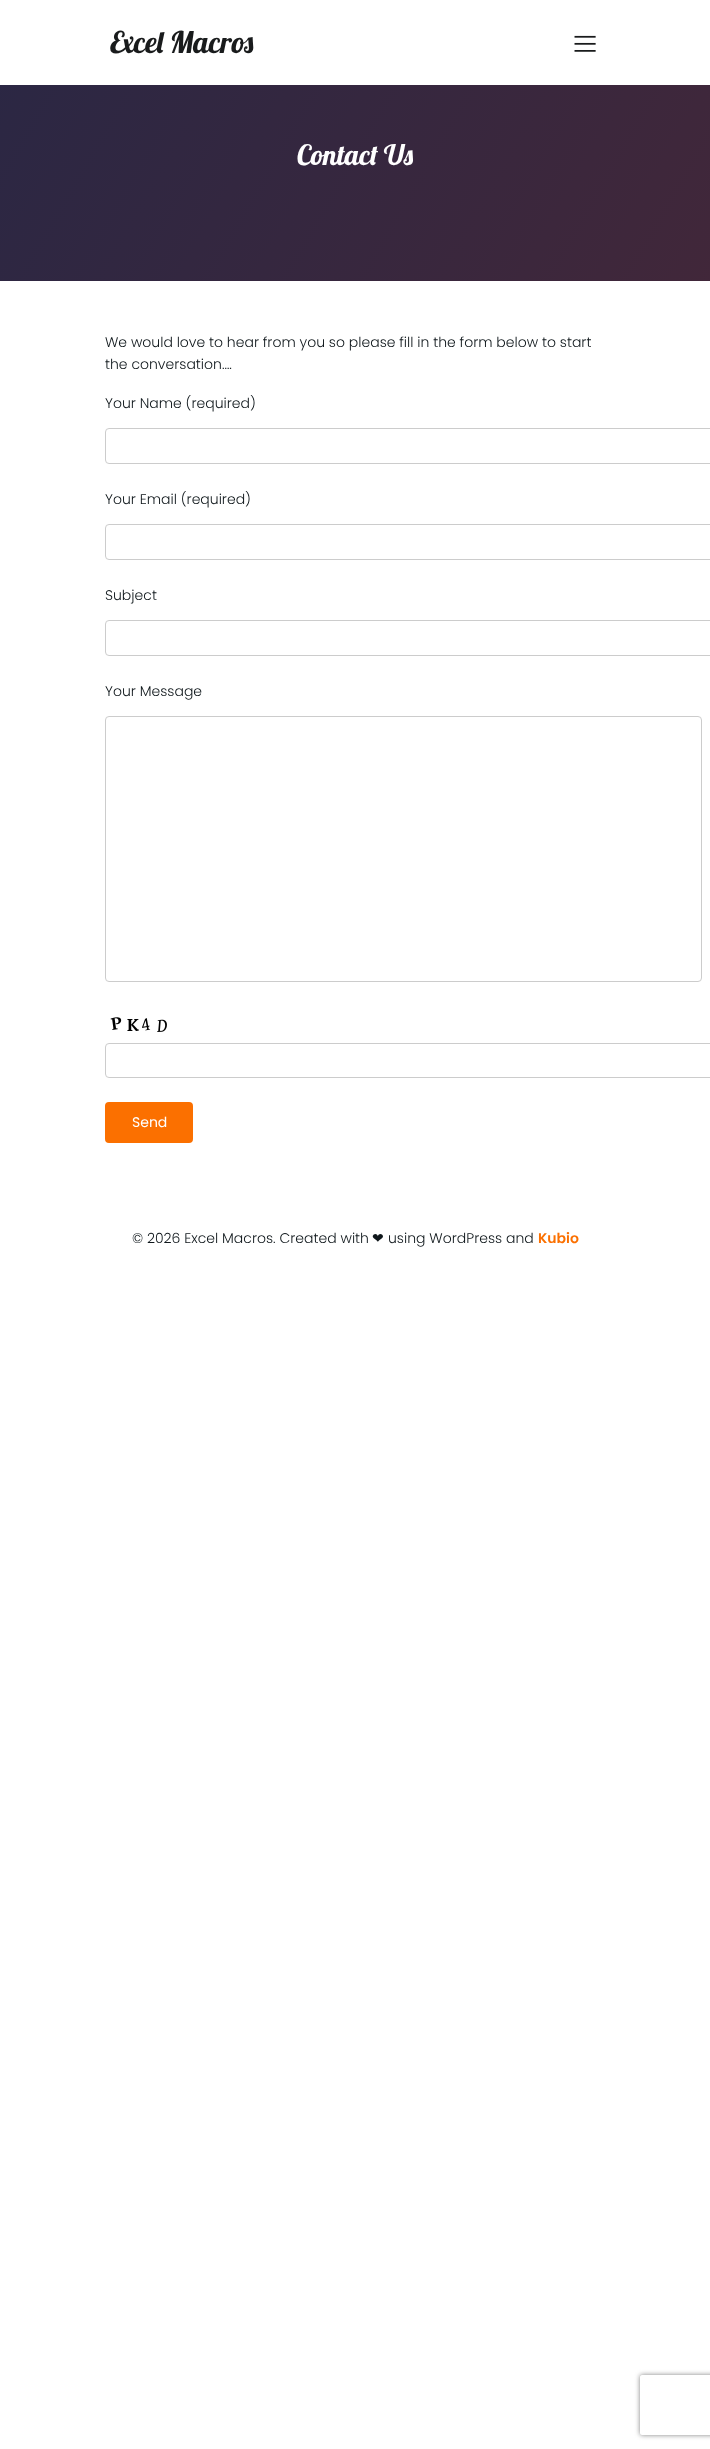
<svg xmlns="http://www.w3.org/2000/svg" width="710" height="2449">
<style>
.a{font:30px Lobster;fill:#191b1c}
.b{font:28px Lobster;fill:#fff}
.c{font:300 14px Poppins;fill:#0f171b}
.d{font:14px Poppins;fill:#fff}
.e{font:14px DejaVu Sans;fill:#0f171b}
.f{font:600 14px Poppins;fill:#fb7000}
</style>
<defs>
<linearGradient id="g1" gradientUnits="userSpaceOnUse" x1="-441" y1="765" x2="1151" y2="1684"><stop offset="0" stop-color="#2a2744"/><stop offset="1" stop-color="#62272b"/></linearGradient>
<clipPath id="clip1"><path d="M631 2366h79v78h-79zm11 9h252c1 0 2 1 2 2v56c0 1-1 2-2 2h-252c-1 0-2-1-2-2v-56c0-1 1-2 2-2z" clip-rule="evenodd"/></clipPath>
</defs>
<rect width="100%" height="100%" fill="#fff"/>
<image href="1.png" x="574" y="35" width="22" height="17"/>
<path fill="url(#g1)" d="M0 85h710v196H0z"/>
<rect fill="none" stroke="#ccc" x="105.5" y="428.5" width="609" height="35" rx="3.5"/>
<rect fill="none" stroke="#ccc" x="105.5" y="524.5" width="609" height="35" rx="3.5"/>
<rect fill="none" stroke="#ccc" x="105.5" y="620.5" width="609" height="35" rx="3.5"/>
<rect fill="none" stroke="#ccc" x="105.5" y="716.5" width="596" height="265" rx="3.5"/>
<image href="2.png" x="110" y="1017" width="57" height="15"/>
<rect fill="none" stroke="#ccc" x="105.5" y="1043.5" width="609" height="34" rx="3.5"/>
<rect fill="#fb7000" stroke="#fb7000" stroke-width="2" x="106" y="1103" width="86" height="39" rx="3"/>
<g clip-path="url(#clip1)">
<rect fill="#808080" filter="blur(2.5px)" x="640" y="2375" width="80" height="60" rx="2"/>
</g>
<text class="a" x="110" y="53">Excel Macros</text>
<text class="b" x="297" y="165">Contact Us</text>
<text class="c" x="105" y="347">We would love to hear from you so please fill in the form below to start</text>
<text class="c" x="105" y="369">the conversation….</text>
<text class="c" x="105" y="408">Your Name (required)</text>
<text class="c" x="105" y="504">Your Email (required)</text>
<text class="c" x="105" y="600">Subject</text>
<text class="c" x="105" y="696">Your Message</text>
<text class="d" x="132" y="1127">Send</text>
<text class="c" x="132" y="1243">© 2026 Excel Macros. Created with</text>
<text class="e" x="372" y="1243">❤</text>
<text class="c" x="388" y="1243">using WordPress and</text>
<text class="f" x="538" y="1243">Kubio</text>
</svg>
